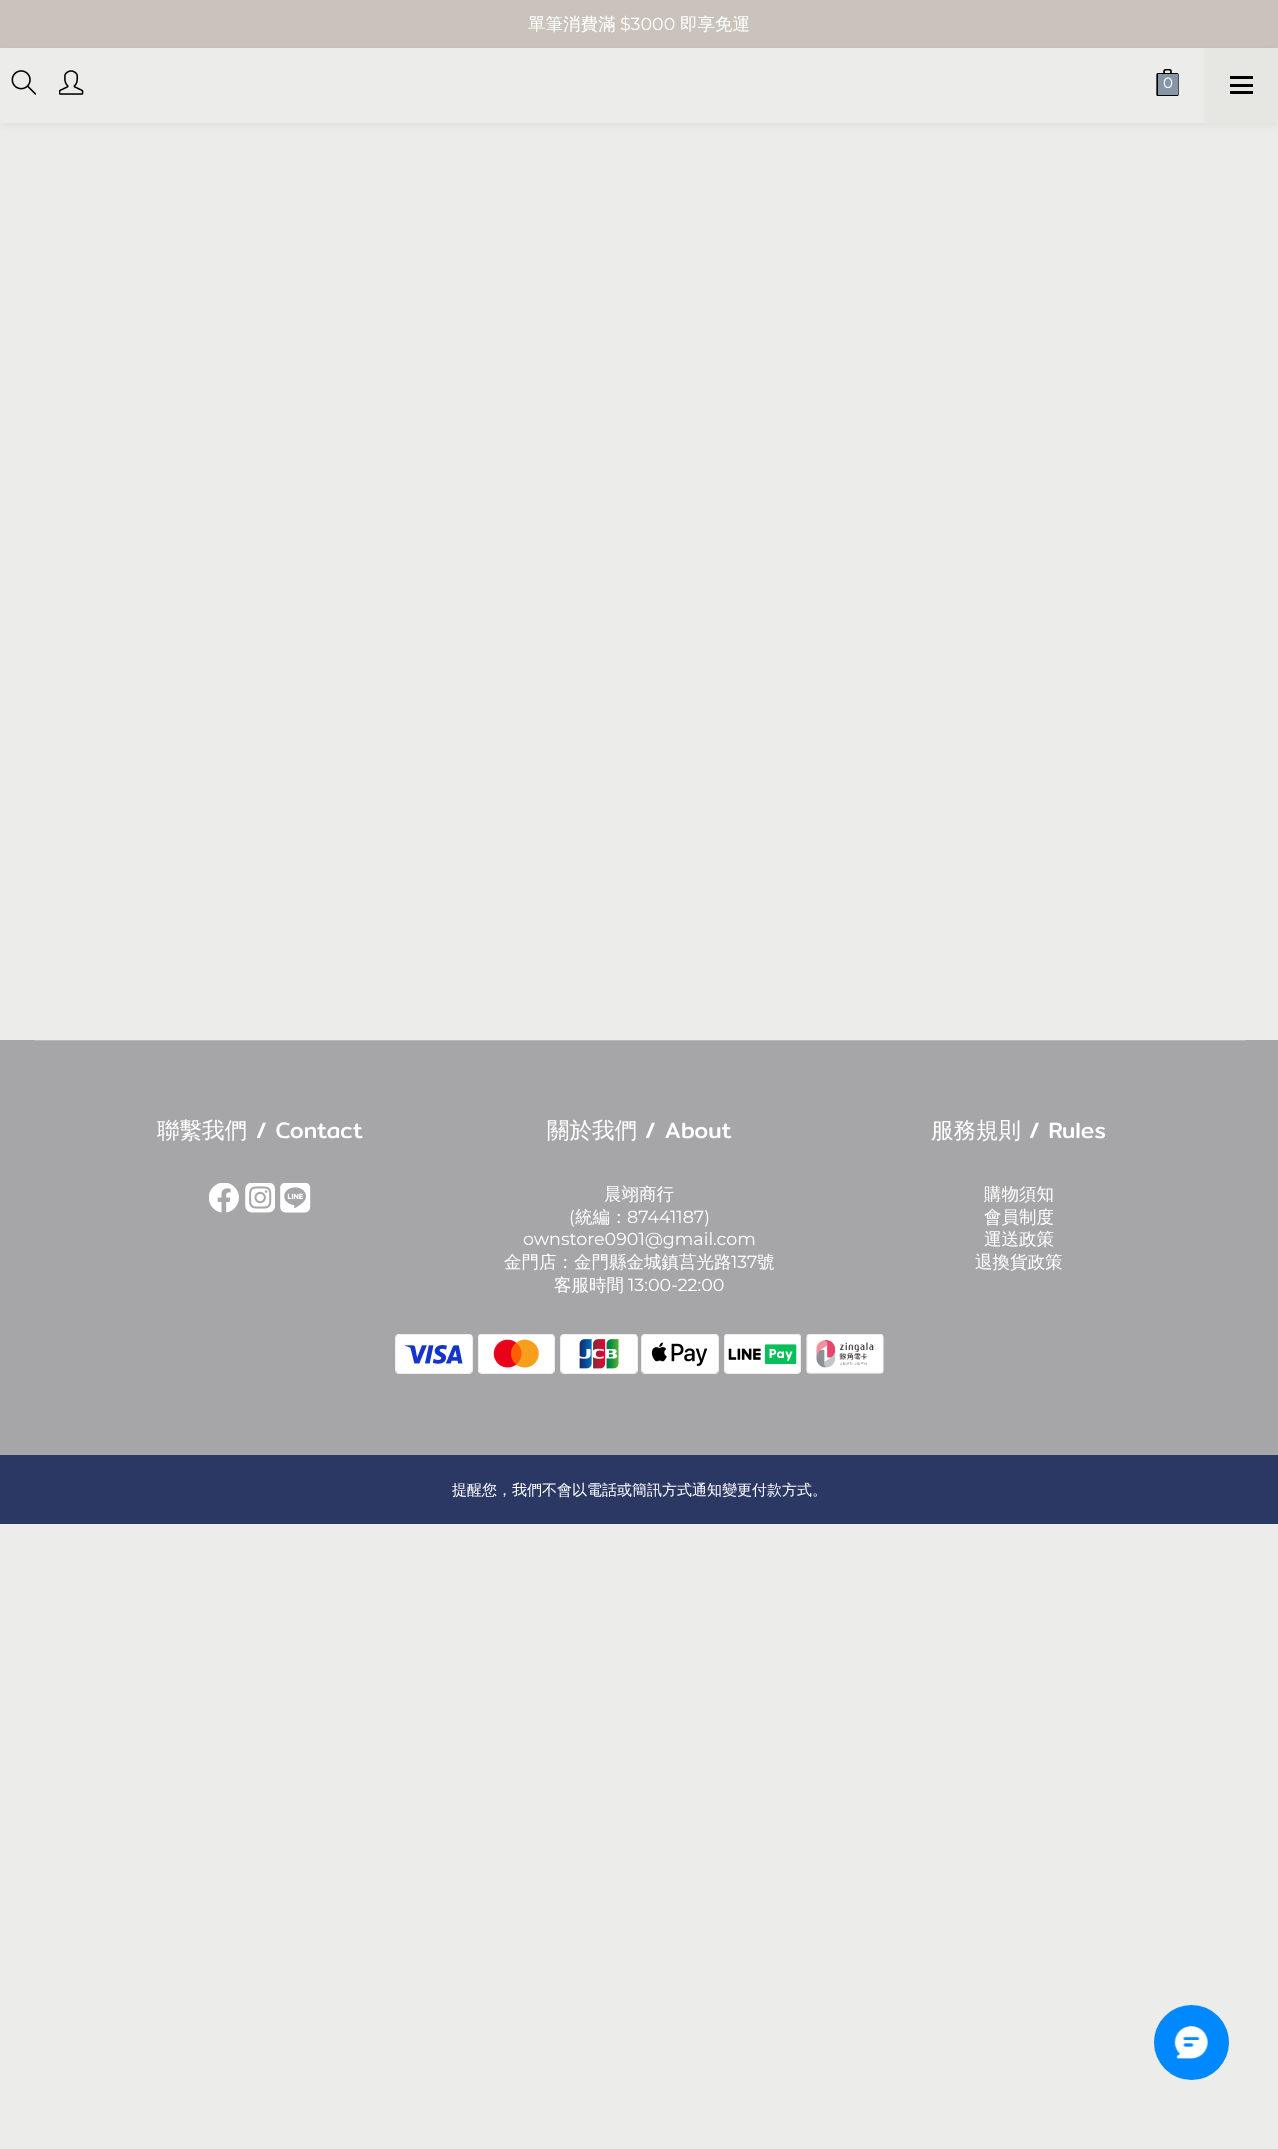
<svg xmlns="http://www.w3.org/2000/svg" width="1278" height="2149">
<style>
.a{font:500 17.5px WenQuanYi Zen Hei;fill:#fff}
.b{font:17.5px Montserrat;fill:#fff}
.c{font:15px Montserrat;fill:#fff}
.d{font:500 22.5px WenQuanYi Zen Hei;fill:#fff}
.e{font:22.5px Mitr;fill:#fff}
.f{font:500 15px WenQuanYi Zen Hei;fill:#fff}
</style>
<rect width="100%" height="100%" fill="#ececea"/>
<path fill="#cac3bb" d="M0 0h1278v48H0z"/>
<path fill="#0000000f" filter="blur(4px)" d="M0 50h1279v75H0z"/>
<path fill="#ececea" d="M0 48h1204v75H0z"/>
<image href="1.png" x="11" y="70" width="25" height="25"/>
<image href="2.png" x="59" y="70" width="25" height="25"/>
<image href="3.png" x="1156" y="69" width="23" height="27"/>
<path fill="#8696a7" d="M1158 74h20v21H1158z"/>
<path fill="#e6e6e3" d="M1204 48h74v75H1204z"/>
<path fill="#000" d="M1230 84h23v3H1230z"/>
<path fill="#000" d="M1230 76h23v3H1230z"/>
<path fill="#000" d="M1230 91h23v3H1230z"/>
<path fill="#a6a6a8" d="M0 1040h1278v415H0z"/>
<path fill="#b9b9bb" d="M34 1040h1212v1H34z"/>
<image href="4.png" x="209" y="1183" width="30" height="30"/>
<image href="5.png" x="245" y="1183" width="30" height="30"/>
<image href="6.png" x="280" y="1183" width="31" height="30"/>
<image href="7.png" x="395" y="1334" width="78" height="40"/>
<image href="8.png" x="478" y="1334" width="77" height="40"/>
<image href="9.png" x="560" y="1334" width="78" height="40"/>
<image href="10.png" x="641" y="1334" width="78" height="40"/>
<image href="11.png" x="724" y="1334" width="77" height="40"/>
<image href="12.png" x="806" y="1334" width="78" height="40"/>
<path fill="#2b3864" d="M0 1455h1278v69H0z"/>
<circle fill="#0088fe" cx="1191.5" cy="2042.5" r="37.5"/>
<image href="13.png" x="1174" y="2026" width="34" height="33"/>
<text class="a" x="528" y="30">單筆消費滿</text>
<text class="b" x="620" y="30">$3000</text>
<text class="a" x="680" y="30">即享免運</text>
<text class="c" x="1163" y="88">0</text>
<text class="d" x="157" y="1138">聯繫我們</text>
<text class="e" x="256" y="1138">/ Contact</text>
<text class="d" x="547" y="1138">關於我們</text>
<text class="e" x="645" y="1138">/ About</text>
<text class="a" x="604" y="1200">晨翊商行</text>
<text class="b" x="569" y="1223">(</text>
<text class="a" x="575" y="1223">統編：</text>
<text class="b" x="627" y="1223">87441187)</text>
<text class="b" x="523" y="1245">ownstore0901@gmail.com</text>
<text class="a" x="504" y="1268">金門店：金門縣金城鎮莒光路</text>
<text class="b" x="731" y="1268">137</text>
<text class="a" x="757" y="1268">號</text>
<text class="a" x="554" y="1291">客服時間</text>
<text class="b" x="628" y="1291">13:00-22:00</text>
<text class="d" x="931" y="1138">服務規則</text>
<text class="e" x="1029" y="1138">/ Rules</text>
<text class="a" x="984" y="1200">購物須知</text>
<text class="a" x="984" y="1223">會員制度</text>
<text class="a" x="984" y="1245">運送政策</text>
<text class="a" x="975" y="1268">退換貨政策</text>
<text class="f" x="452" y="1495">提醒您，我們不會以電話或簡訊方式通知變更付款方式。</text>
</svg>
